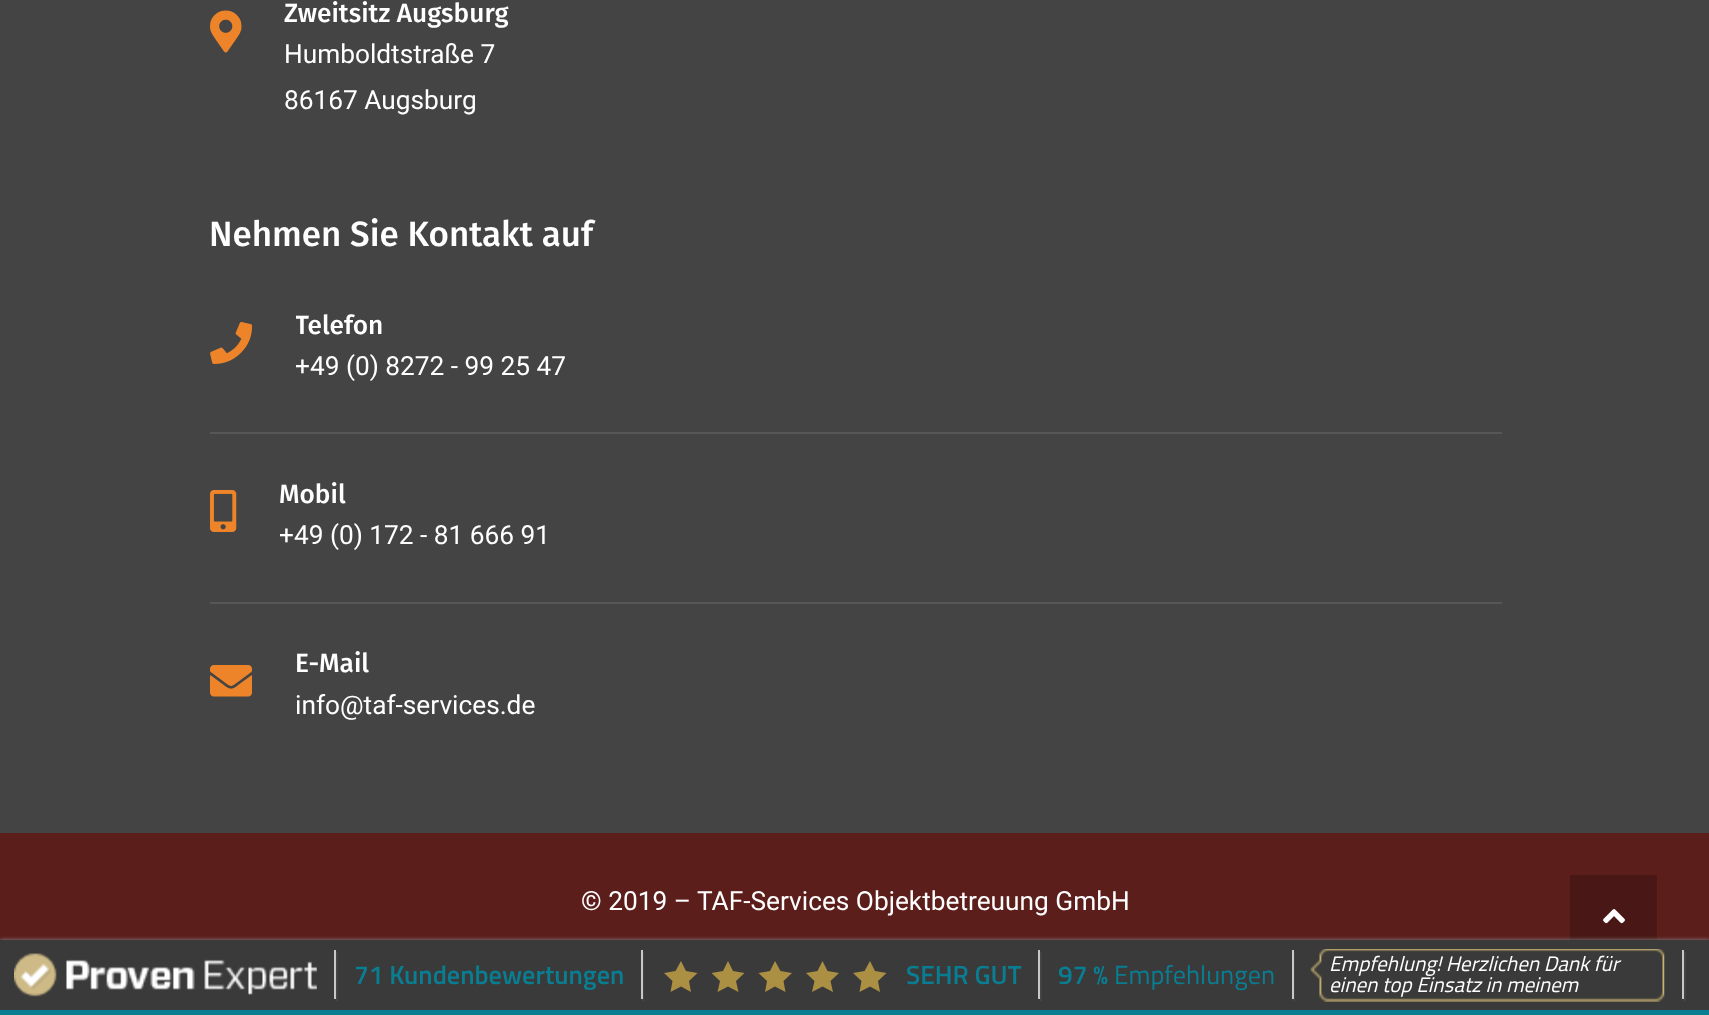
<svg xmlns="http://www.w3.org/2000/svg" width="1709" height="1015">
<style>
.a{font:500 26.25px Fira Sans;fill:#fff}
.b{font:26.25px Roboto;fill:#fff}
.c{font:500 35px Fira Sans;fill:#fff}
.d{font:600 26.25px Titillium Web;fill:#097e92}
.e{font:26.25px Titillium Web;fill:#097e92}
.f{font:italic 21px Titillium Web;fill:#fff}
</style>
<defs>
<clipPath id="clip1"><path d="M296 310h1206v79H296z"/></clipPath>
</defs>
<rect width="100%" height="100%" fill="#444"/>
<image href="1.png" x="210" y="10" width="32" height="43"/>
<image href="2.png" x="210" y="322" width="43" height="42"/>
<path fill="#575757" d="M210 432h1292v2H210z"/>
<image href="3.png" x="210" y="490" width="27" height="42"/>
<path fill="#575757" d="M210 602h1292v2H210z"/>
<image href="4.png" x="210" y="665" width="42" height="32"/>
<path fill="#5b1e1b" d="M0 833h1709v107H0z"/>
<path fill="#491816" d="M1570 875h87v65H1570z"/>
<image href="5.png" x="1603" y="909" width="22" height="15"/>
<path fill="#888" filter="blur(2px)" d="M0 940h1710v75H0z"/>
<path fill="#3a3a3a" d="M0 940h1709v70H0z"/>
<image href="6.png" x="14" y="953" width="303" height="44"/>
<path fill="#444" d="M336 952h2v49H336z"/>
<path fill="#c7c7c7" d="M334 950h2v49H334z"/>
<path fill="#444" d="M642 999v2h2v-49h-2z"/>
<path fill="#c7c7c7" d="M641 950h2v49H641z"/>
<path fill="#ab9044" d="M681 961l5 10l11.5 2l-8.5 8l2 11l-10-5.5l-10.5 5.5l2-11l-8.5-8l11.5-2z"/>
<path fill="#ab9044" d="M728 961l5 10l11.5 2l-8.5 8l2.5 11l-10.5-5.5l-10.5 5.5l2.5-11l-8.5-8l11.5-2z"/>
<path fill="#ab9044" d="M775 961l5.5 10l11.5 2l-8.5 8l2 11l-10.5-5.5l-10 5.5l2-11l-8.5-8l11.5-2z"/>
<path fill="#ab9044" d="M822.5 961l5 10l11.5 2l-8.5 8l2.5 11l-10.5-5.5l-10.5 5.5l2.5-11l-8.5-8l11.5-2z"/>
<path fill="#ab9044" d="M870 961l5 10l11.5 2l-8.5 8l2 11l-10-5.5l-10.5 5.5l2-11l-8.5-8l11.5-2z"/>
<path fill="#444" d="M1040 952h2v49H1040z"/>
<path fill="#c7c7c7" d="M1038 950h2v49H1038z"/>
<path fill="#444" d="M1293 999v2h2v-49h-2z"/>
<path fill="#c7c7c7" d="M1292 950h2v49H1292z"/>
<image href="7.png" x="1310" y="949" width="355" height="53"/>
<path fill="#444" d="M1684 952h2v49H1684z"/>
<path fill="#c7c7c7" d="M1682 950h2v49H1682z"/>
<path fill="#097e92" d="M0 1010h1709v5H0z"/>
<text class="a" x="284" y="22">Zweitsitz Augsburg</text>
<text class="b" x="284" y="63">Humboldtstraße 7</text>
<text class="b" x="284" y="109">86167 Augsburg</text>
<text class="c" x="209" y="246">Nehmen Sie Kontakt auf</text>
<g clip-path="url(#clip1)">
<text class="a" x="295" y="334">Telefon</text>
</g>
<text class="b" x="295" y="375">+49 (0) 8272 - 99 25 47</text>
<text class="a" x="279" y="503">Mobil</text>
<text class="b" x="279" y="544">+49 (0) 172 - 81 666 91</text>
<text class="a" x="295" y="672">E-Mail</text>
<text class="b" x="295" y="714">info@taf-services.de</text>
<text class="b" x="581" y="910">© 2019 – TAF-Services Objektbetreuung GmbH</text>
<text class="d" x="354" y="984">71 Kundenbewertungen</text>
<text class="d" x="906" y="984">SEHR GUT</text>
<text class="d" x="1058" y="984">97 %</text>
<text class="e" x="1114" y="984">Empfehlungen</text>
<text class="f" x="1329" y="971">Empfehlung! Herzlichen Dank für</text>
<text class="f" x="1329" y="992">einen top Einsatz in meinem</text>
</svg>
